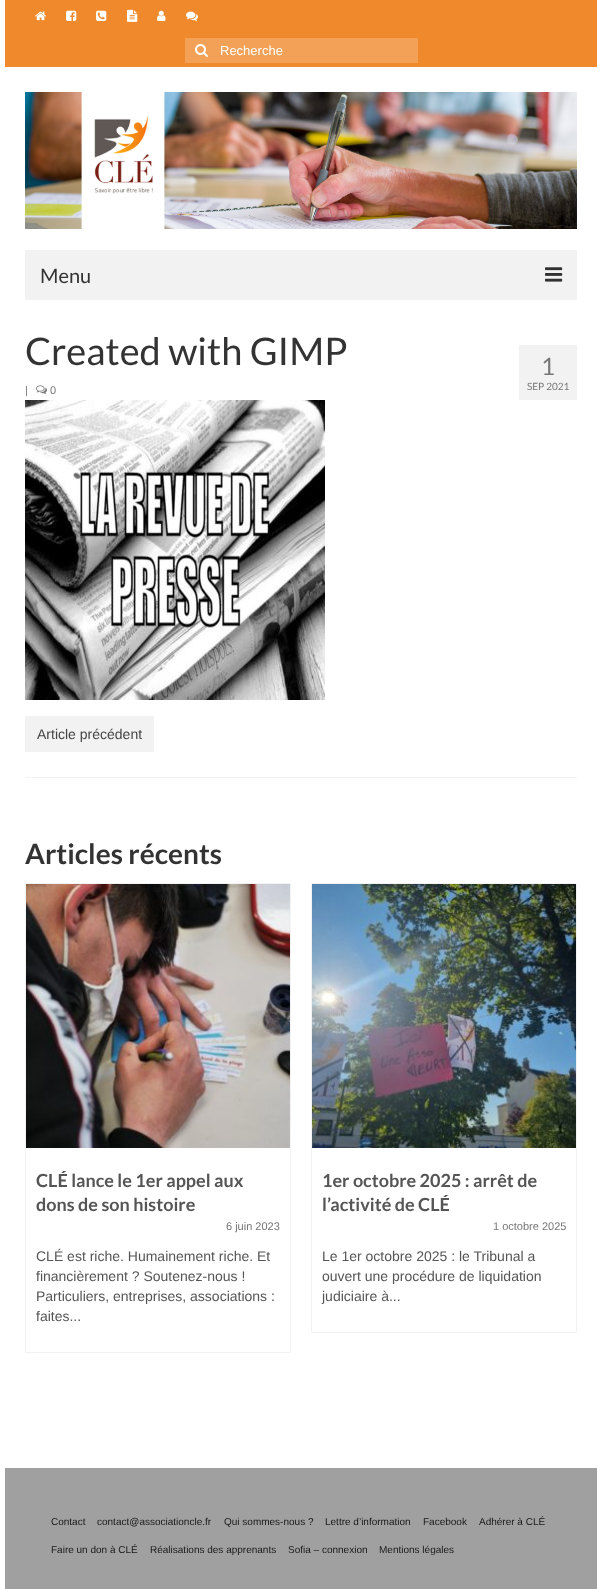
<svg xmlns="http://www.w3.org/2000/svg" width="602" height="1589">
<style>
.a{font:13px Liberation Sans;fill:#fff}
.b{font:20px Lato;fill:#333}
.c{font:38px Lato;fill:#333}
.d{font:11px Liberation Sans;fill:#777}
.e{font:24px Lato;fill:#777}
.f{font:10px Lato;fill:#777}
.g{font:14px Liberation Sans;fill:#444}
.h{font:bold 28px Lato;fill:#333}
.i{font:bold 18px Lato;fill:#555}
.j{font:14px Liberation Sans;fill:#555}
.k{font:10px Liberation Sans;fill:#191919}
</style>
<rect width="100%" height="100%" fill="#fff"/>
<path fill="#f0892c" d="M5 0h592v67H5z"/>
<image href="1.png" x="35" y="11" width="11" height="10"/>
<image href="2.png" x="66" y="10" width="11" height="11"/>
<image href="3.png" x="96" y="10" width="11" height="11"/>
<image href="4.png" x="127" y="9" width="11" height="13"/>
<image href="5.png" x="157" y="10" width="9" height="11"/>
<image href="6.png" x="186" y="11" width="12" height="10"/>
<path fill="#f3a156" d="M185 38h233v25H185z"/>
<image href="7.png" x="195" y="44" width="13" height="13"/>
<image href="8.png" x="25" y="92" width="552" height="137"/>
<path fill="#f2f2f2" d="M25 250h552v50H25z"/>
<image href="9.png" x="545" y="267" width="18" height="15"/>
<image href="10.png" x="36" y="385" width="11" height="9"/>
<path fill="#f2f2f2" d="M519 345h58v55H519z"/>
<image href="11.png" x="25" y="400" width="300" height="300"/>
<path fill="#f2f2f2" d="M25 777h552v1H25z"/>
<path fill="#f2f2f2" d="M25 716h129v36H25z"/>
<path fill="none" stroke="#f2f2f2" d="M25.5 883.5h265v469H25.5z"/>
<image href="12.png" x="26" y="884" width="264" height="264"/>
<path fill="none" stroke="#f2f2f2" d="M311.5 883.5h265v449H311.5z"/>
<image href="13.png" x="312" y="884" width="264" height="264"/>
<path fill="#a0a0a0" d="M5 1468h592v121H5z"/>
<text class="a" x="220" y="55">Recherche</text>
<text class="b" x="40" y="283">Menu</text>
<text class="c" x="25" y="365">Created with GIMP</text>
<text class="d" x="25" y="394">|</text>
<text class="d" x="50" y="394">0</text>
<text class="e" x="541" y="375">1</text>
<text class="f" x="527" y="390">SEP 2021</text>
<text class="g" x="37" y="739">Article précédent</text>
<text class="h" x="25" y="864">Articles récents</text>
<text class="i" x="36" y="1187">CLÉ lance le 1er appel aux</text>
<text class="i" x="36" y="1211">dons de son histoire</text>
<text class="d" x="226" y="1230">6 juin 2023</text>
<text class="j" x="36" y="1261">CLÉ est riche. Humainement riche. Et</text>
<text class="j" x="36" y="1281">financièrement ? Soutenez-nous !</text>
<text class="j" x="36" y="1301">Particuliers, entreprises, associations :</text>
<text class="j" x="36" y="1321">faites...</text>
<text class="i" x="322" y="1187">1er octobre 2025 : arrêt de</text>
<text class="i" x="322" y="1211">l’activité de CLÉ</text>
<text class="d" x="493" y="1230">1 octobre 2025</text>
<text class="j" x="322" y="1261">Le 1er octobre 2025 : le Tribunal a</text>
<text class="j" x="322" y="1281">ouvert une procédure de liquidation</text>
<text class="j" x="322" y="1301">judiciaire à...</text>
<text class="k" x="51" y="1525">Contact</text>
<text class="k" x="97" y="1525">contact@associationcle.fr</text>
<text class="k" x="224" y="1525">Qui sommes-nous ?</text>
<text class="k" x="325" y="1525">Lettre d’information</text>
<text class="k" x="423" y="1525">Facebook</text>
<text class="k" x="479" y="1525">Adhérer à CLÉ</text>
<text class="k" x="51" y="1553">Faire un don à CLÉ</text>
<text class="k" x="150" y="1553">Réalisations des apprenants</text>
<text class="k" x="288" y="1553">Sofia – connexion</text>
<text class="k" x="379" y="1553">Mentions légales</text>
</svg>
